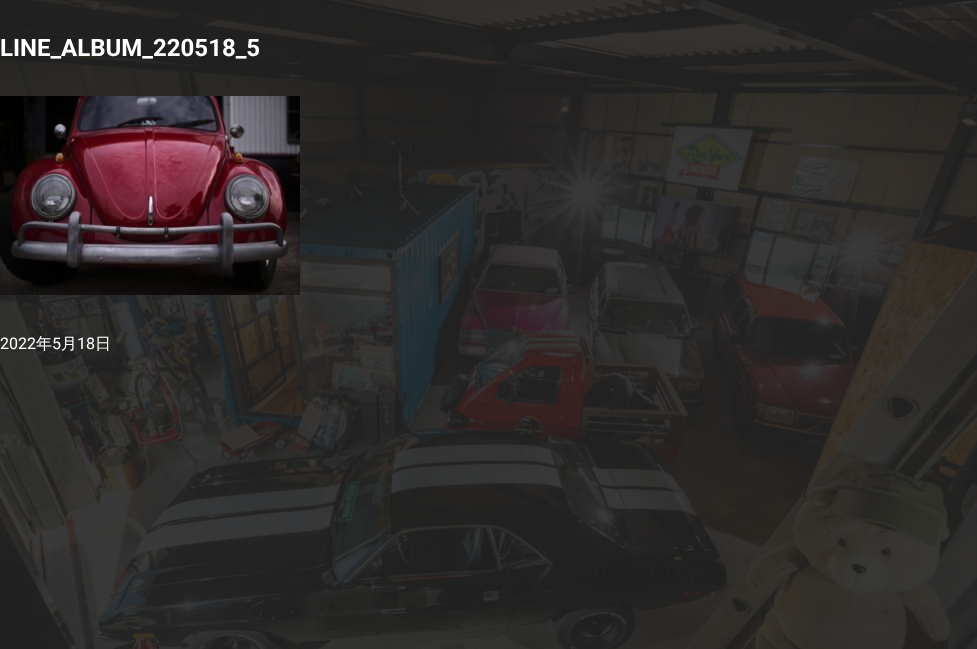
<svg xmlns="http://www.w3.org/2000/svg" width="977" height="649">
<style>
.a{font:bold 24px Roboto;fill:#fff}
.b{font:16px Roboto;fill:#fff}
.c{font:500 16px WenQuanYi Zen Hei;fill:#fff}
</style>
<rect width="100%" height="100%" fill="#242424"/>
<image href="1.png" x="0" y="0" width="977" height="649"/>
<image href="2.png" x="0" y="96" width="300" height="199"/>
<text class="a" x="0" y="56">LINE_ALBUM_220518_5</text>
<text class="b" x="0" y="349">2022</text>
<text class="c" x="36" y="349">年</text>
<text class="b" x="52" y="349">5</text>
<text class="c" x="61" y="349">月</text>
<text class="b" x="77" y="349">18</text>
<text class="c" x="95" y="349">日</text>
</svg>
